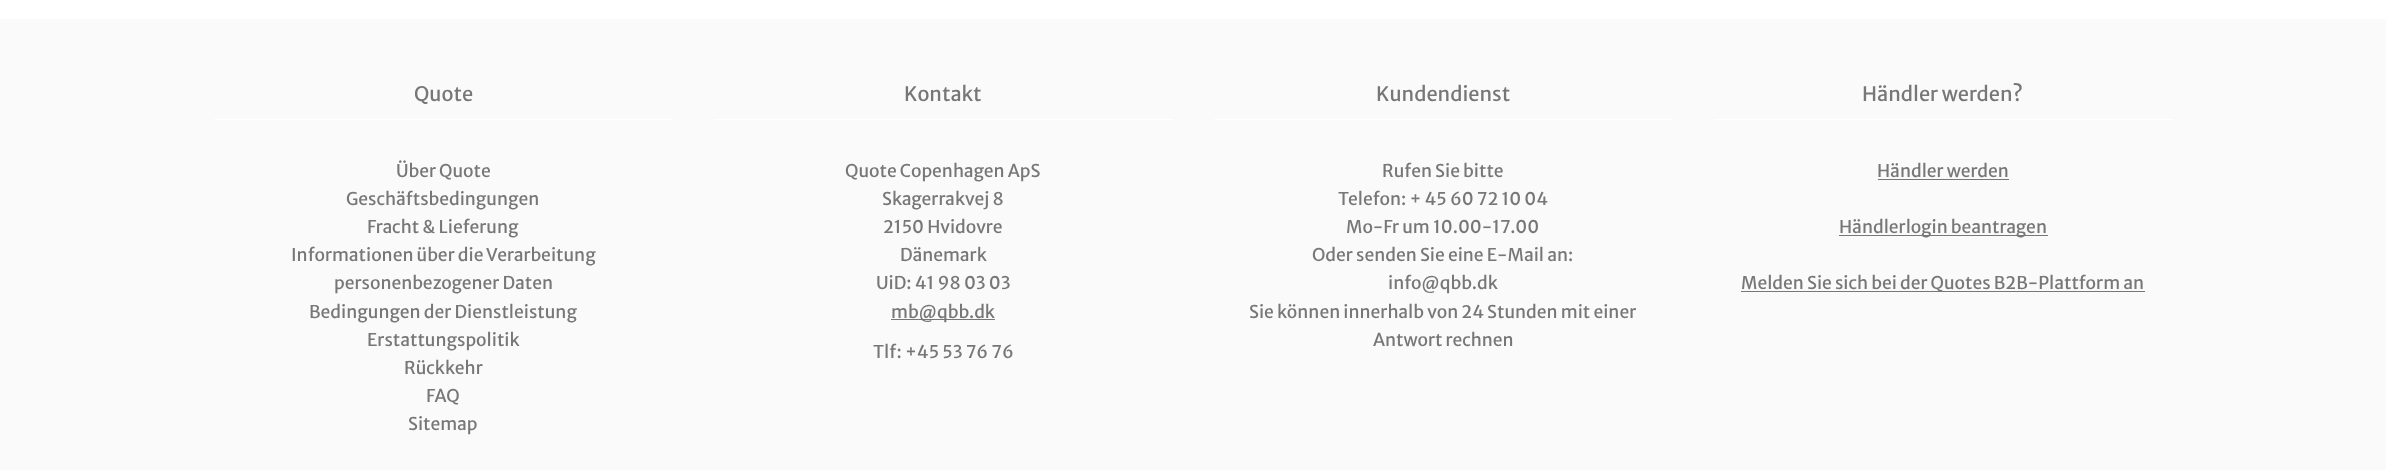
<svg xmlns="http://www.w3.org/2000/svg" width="2386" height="470">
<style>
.a{font:20px Merriweather Sans;fill:#777}
.b{font:17.5px Merriweather Sans;fill:#777}
</style>
<rect width="100%" height="100%" fill="#fff"/>
<path fill="#fafafa" d="M0 19h2386v451H0z"/>
<path fill="#fff" d="M214 119h459v1H214z"/>
<path fill="#fff" d="M714 119h459v1H714z"/>
<path fill="#777" d="M891 319h104v1H891z"/>
<path fill="#fff" d="M1214 119h459v1H1214z"/>
<path fill="#fff" d="M1714 119h459v1H1714z"/>
<path fill="#777" d="M1878 179h131v1H1878z"/>
<path fill="#777" d="M1839 235h209v1H1839z"/>
<path fill="#777" d="M1741 291h404v1H1741z"/>
<text class="a" x="414" y="101">Quote</text>
<text class="b" x="396" y="177">Über Quote</text>
<text class="b" x="346" y="205">Geschäftsbedingungen</text>
<text class="b" x="367" y="233">Fracht &amp; Lieferung</text>
<text class="b" x="291" y="261">Informationen über die Verarbeitung</text>
<text class="b" x="334" y="289">personenbezogener Daten</text>
<text class="b" x="309" y="318">Bedingungen der Dienstleistung</text>
<text class="b" x="367" y="346">Erstattungspolitik</text>
<text class="b" x="404" y="374">Rückkehr</text>
<text class="b" x="426" y="402">FAQ</text>
<text class="b" x="408" y="430">Sitemap</text>
<text class="a" x="904" y="101">Kontakt</text>
<text class="b" x="845" y="177">Quote Copenhagen ApS</text>
<text class="b" x="882" y="205">Skagerrakvej 8</text>
<text class="b" x="883" y="233">2150 Hvidovre</text>
<text class="b" x="900" y="261">Dänemark</text>
<text class="b" x="876" y="289">UiD: 41 98 03 03</text>
<text class="b" x="891" y="318">mb@qbb.dk</text>
<text class="b" x="873" y="358">Tlf: +45 53 76 76</text>
<text class="a" x="1376" y="101">Kundendienst</text>
<text class="b" x="1382" y="177">Rufen Sie bitte</text>
<text class="b" x="1338" y="205">Telefon: + 45 60 72 10 04</text>
<text class="b" x="1346" y="233">Mo-Fr um 10.00-17.00</text>
<text class="b" x="1312" y="261">Oder senden Sie eine E-Mail an:</text>
<text class="b" x="1388" y="289">info@qbb.dk</text>
<text class="b" x="1249" y="318">Sie können innerhalb von 24 Stunden mit einer</text>
<text class="b" x="1373" y="346">Antwort rechnen</text>
<text class="a" x="1862" y="101">Händler werden?</text>
<text class="b" x="1877" y="177">Händler werden</text>
<text class="b" x="1839" y="233">Händlerlogin beantragen</text>
<text class="b" x="1741" y="289">Melden Sie sich bei der Quotes B2B-Plattform an</text>
</svg>
